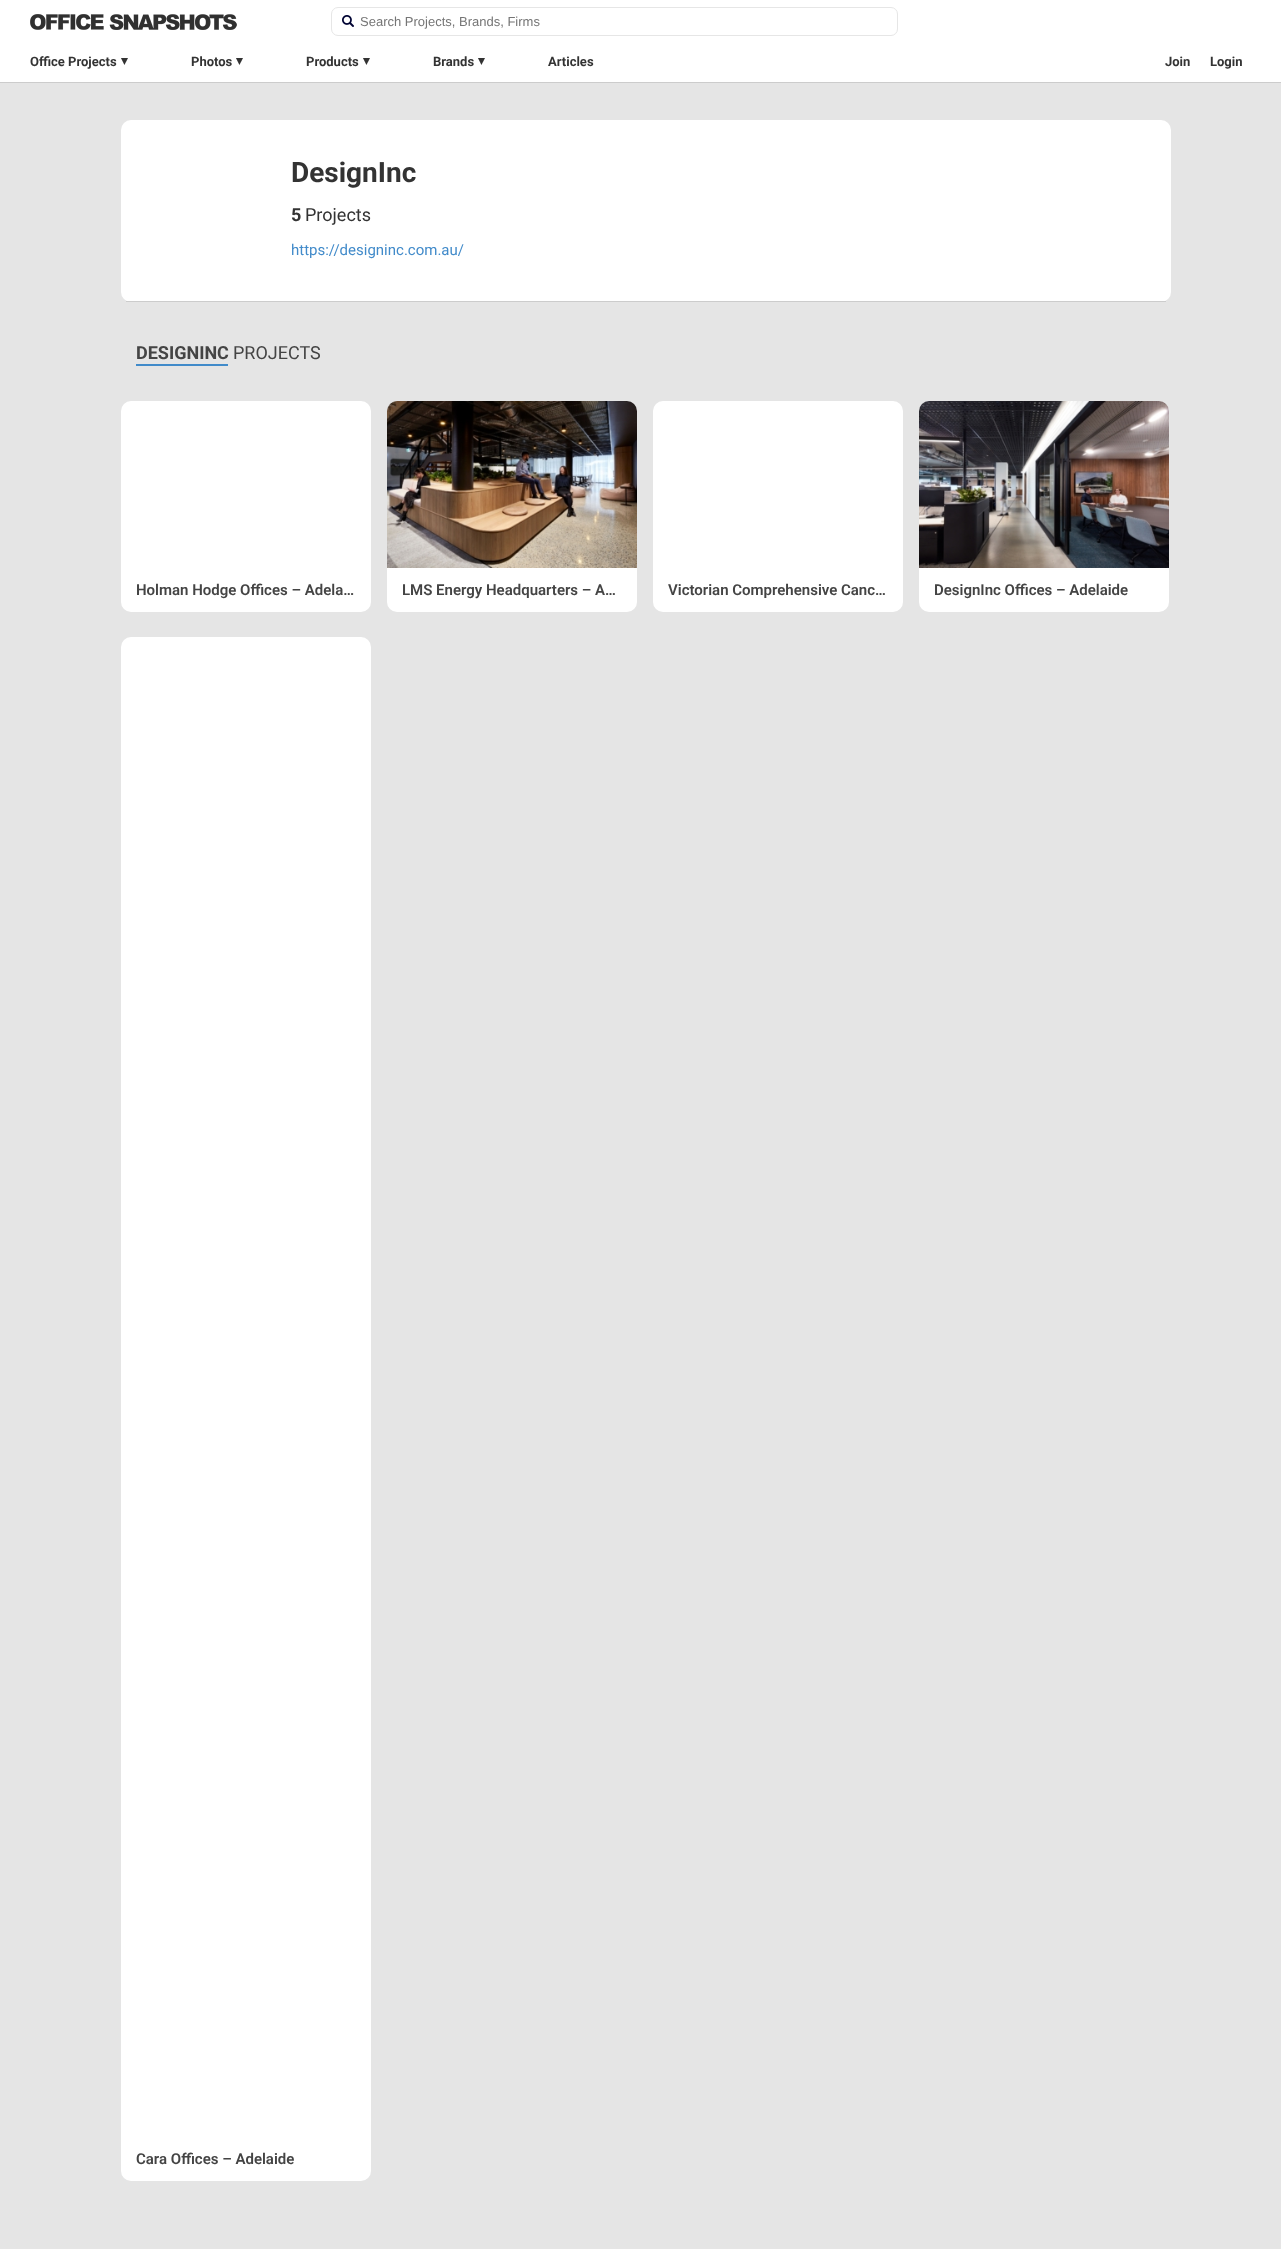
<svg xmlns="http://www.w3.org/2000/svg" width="1281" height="2249">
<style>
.a{font:13px Liberation Sans;fill:#757575}
.b{font:bold 13px Roboto;fill:#333}
.c{font:bold 13px DejaVu Sans;fill:#333}
.d{font:bold 28px Roboto;fill:#333}
.e{font:bold 18px Roboto;fill:#333}
.f{font:18px Roboto;fill:#333}
.g{font:15px Roboto;fill:#428bca}
.h{font:bold 18px Roboto;fill:#444}
.i{font:18px Roboto;fill:#444}
.j{font:600 15px Roboto;fill:#444}
</style>
<rect width="100%" height="100%" fill="#e5e5e5"/>
<path fill="#fff" d="M0 0h1281v82H0z"/>
<path fill="#ccc" d="M0 82h1281v1H0z"/>
<image href="1.png" x="30" y="14" width="207" height="16"/>
<rect fill="none" stroke="#e6e6e6" x="331.5" y="7.5" width="566" height="28" rx="6.5"/>
<image href="2.png" x="342" y="15" width="12" height="12"/>
<rect fill="#fff" x="121" y="120" width="1050" height="182" rx="10"/>
<path fill="#ccc" d="M126 301h1040v1H126z"/>
<path fill="#418bca" d="M136 364h92v2H136z"/>
<rect fill="#fff" x="121" y="401" width="250" height="211" rx="10"/>
<rect fill="#fff" x="387" y="401" width="250" height="211" rx="10"/>
<image href="3.png" x="387" y="401" width="250" height="167"/>
<rect fill="#fff" x="653" y="401" width="250" height="211" rx="10"/>
<rect fill="#fff" x="919" y="401" width="250" height="211" rx="10"/>
<image href="4.png" x="919" y="401" width="250" height="167"/>
<rect fill="#fff" x="121" y="637" width="250" height="1544" rx="10"/>
<text class="a" x="360" y="26">Search Projects, Brands, Firms</text>
<text class="b" x="30" y="66">Office Projects</text>
<text class="c" x="121" y="65">▾</text>
<text class="b" x="191" y="66">Photos</text>
<text class="c" x="236" y="65">▾</text>
<text class="b" x="306" y="66">Products</text>
<text class="c" x="363" y="65">▾</text>
<text class="b" x="433" y="66">Brands</text>
<text class="c" x="478" y="65">▾</text>
<text class="b" x="548" y="66">Articles</text>
<text class="b" x="1165" y="66">Join</text>
<text class="b" x="1210" y="66">Login</text>
<text class="d" x="291" y="182">DesignInc</text>
<text class="e" x="291" y="221">5</text>
<text class="f" x="305" y="221">Projects</text>
<text class="g" x="291" y="255">https://designinc.com.au/</text>
<text class="h" x="136" y="359">DESIGNINC</text>
<text class="i" x="233" y="359">PROJECTS</text>
<text class="j" x="136" y="595">Holman Hodge Offices – Adela…</text>
<text class="j" x="402" y="595">LMS Energy Headquarters – A…</text>
<text class="j" x="668" y="595">Victorian Comprehensive Canc…</text>
<text class="j" x="934" y="595">DesignInc Offices – Adelaide</text>
<text class="j" x="136" y="2164">Cara Offices – Adelaide</text>
</svg>
